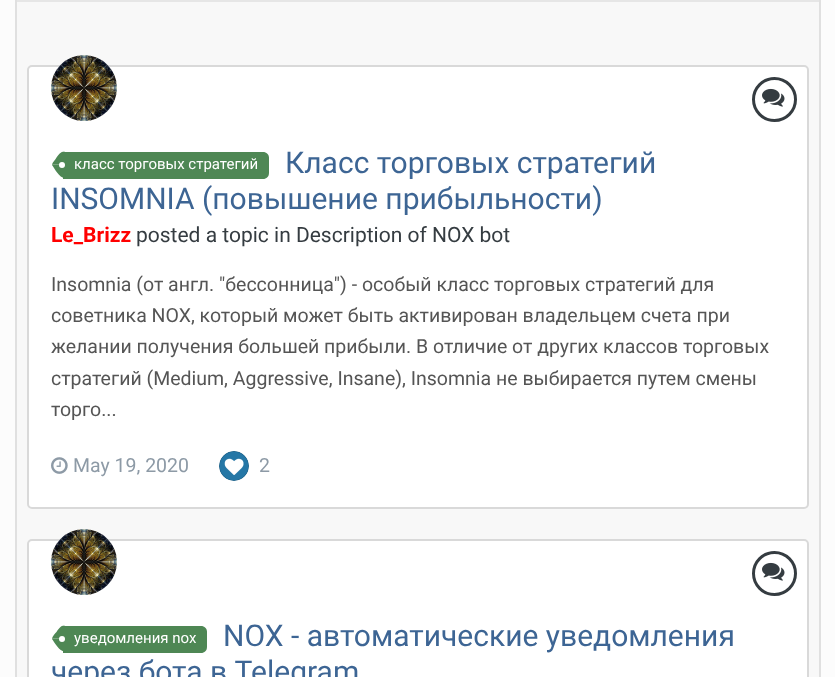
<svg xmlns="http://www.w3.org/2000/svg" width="835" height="677">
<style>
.a{font:15px Roboto;fill:#fff}
.b{font:30px Roboto;fill:#3d6594}
.c{font:bold 21px Roboto;fill:#f00}
.d{font:21px Roboto;fill:#353c41}
.e{font:19.5px Roboto;fill:#555}
.f{font:19.5px Roboto;fill:#8d9aa6}
</style>
<rect width="100%" height="100%" fill="#fcfcfc"/>
<path fill="none" stroke="#e0e0e0" stroke-width="2" d="M16 -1h804v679H16z"/>
<path fill="#e6e6e6" d="M17 0h802v2H17z"/>
<path fill="#f8f8f8" d="M17 2h802v675H17z"/>
<rect fill="#fff" stroke="#d9d9d9" stroke-width="2" x="28" y="66" width="780" height="442" rx="4"/>
<circle fill="#fff" cx="84" cy="89" r="33"/>
<image href="1.png" x="51" y="55" width="66" height="66"/>
<circle fill="none" stroke="#353c41" stroke-width="3" cx="774.5" cy="99.5" r="21"/>
<image href="2.png" x="762" y="88" width="23" height="19"/>
<path fill="#4e8754" d="M63 152h200c3.5 0 6 2.5 6 6v15c0 3.5-2.5 6-6 6h-200z"/>
<path fill="#4e8754" d="M52 165v-.5h12.5l-.5 .5h.5v13c-5 0-10-9.5-12.5-13z"/>
<path fill="#4e8754" d="M56.5 157.5c2-2.5 4-6 8-6v13l-.5-.5l.5 .5h-12.5c.5-2 3.5-5 4.5-7z"/>
<circle fill="#fff" cx="62" cy="165" r="3"/>
<image href="3.png" x="51" y="457" width="17" height="17"/>
<image href="4.png" x="219" y="451" width="30" height="30"/>
<rect fill="#fff" stroke="#d9d9d9" stroke-width="2" x="28" y="540" width="780" height="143" rx="4"/>
<circle fill="#fff" cx="84" cy="563" r="33"/>
<image href="5.png" x="51" y="529" width="66" height="66"/>
<circle fill="none" stroke="#353c41" stroke-width="3" cx="774.5" cy="573.5" r="21"/>
<image href="2.png" x="762" y="562" width="23" height="19"/>
<path fill="#4e8754" d="M63 626h138c3.5 0 6 2.5 6 6v15c0 3.5-2.5 6-6 6h-138z"/>
<path fill="#4e8754" d="M52 639v-.5h12.5l-.5 .5h.5v12.5c-5 0-10-9-12.5-12.5z"/>
<path fill="#4e8754" d="M56.5 632c2-3 4-6.5 8-6.5v13l-.5-.5l.5 .5h-12.5c.5-2 3-5 4.5-6.5z"/>
<circle fill="#fff" cx="62" cy="639" r="3"/>
<text class="a" x="74" y="169">класс торговых стратегий</text>
<text class="b" x="285" y="173">Класс торговых стратегий</text>
<text class="b" x="51" y="209">INSOMNIA (повышение прибыльности)</text>
<text class="c" x="51" y="242">Le_Brizz</text>
<text class="d" x="136" y="242">posted a topic in Description of NOX bot</text>
<text class="e" x="51" y="291">Insomnia (от англ. "бессонница") - особый класс торговых стратегий для</text>
<text class="e" x="51" y="322">советника NOX, который может быть активирован владельцем счета при</text>
<text class="e" x="51" y="353">желании получения большей прибыли. В отличие от других классов торговых</text>
<text class="e" x="51" y="385">стратегий (Medium, Aggressive, Insane), Insomnia не выбирается путем смены</text>
<text class="e" x="51" y="416">торго...</text>
<text class="f" x="73" y="472">May 19, 2020</text>
<text class="f" x="259" y="472">2</text>
<text class="a" x="74" y="643">уведомления nox</text>
<text class="b" x="223" y="646">NOX - автоматические уведомления</text>
<text class="b" x="51" y="682">через бота в Telegram</text>
</svg>
